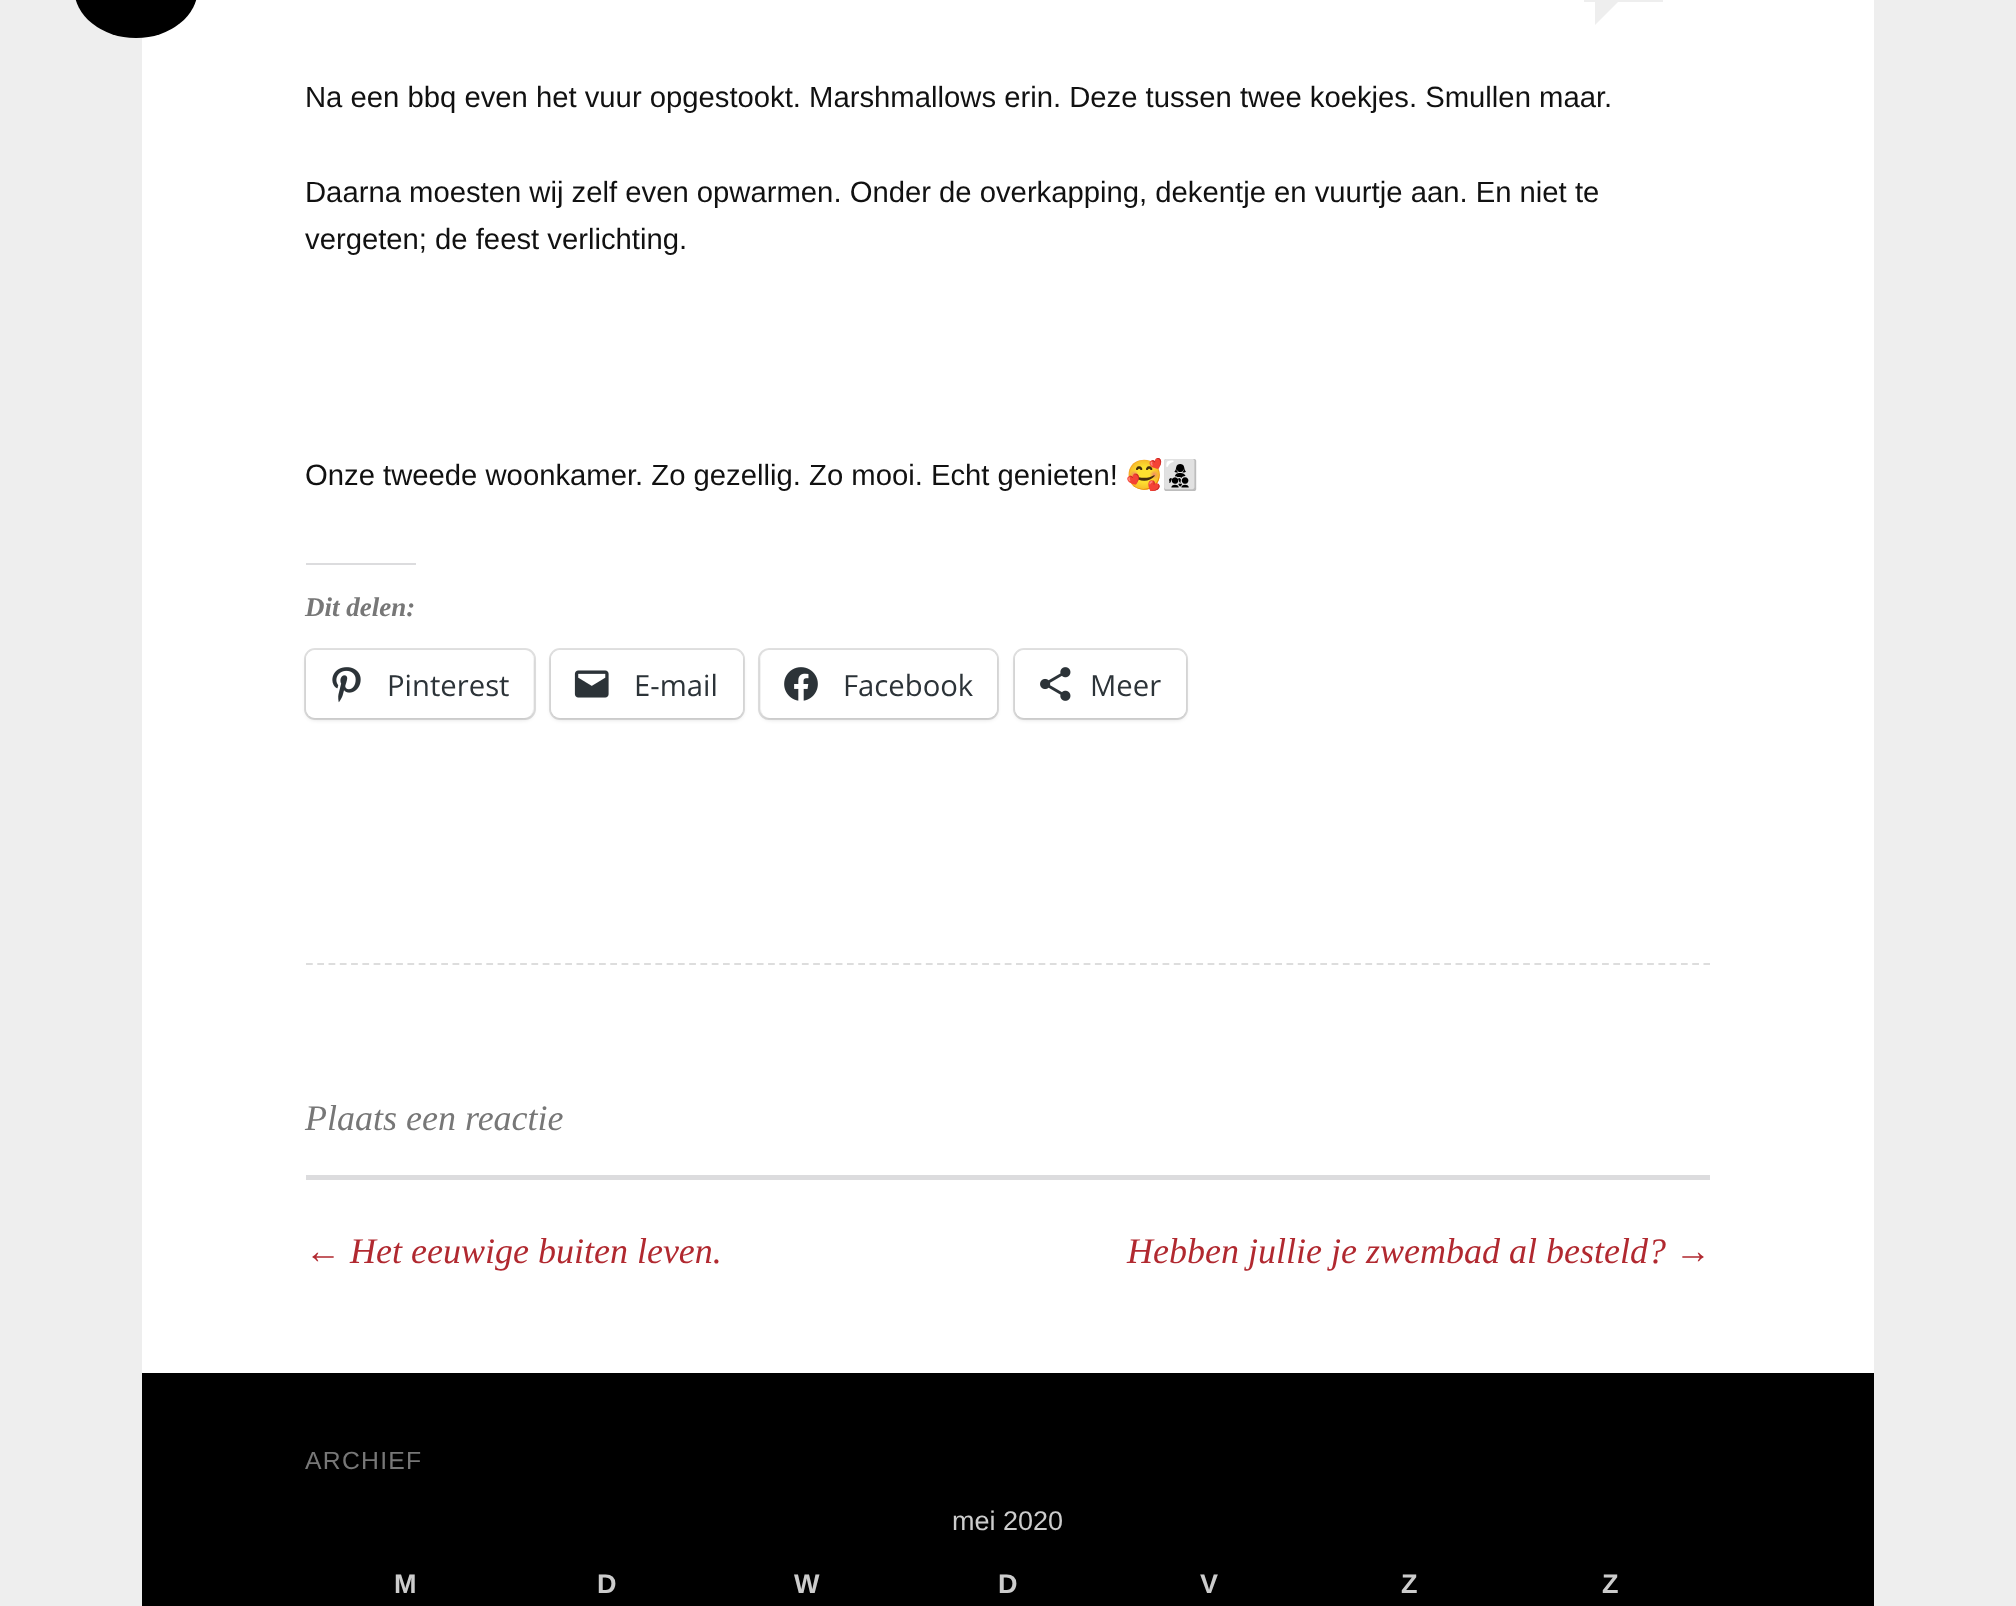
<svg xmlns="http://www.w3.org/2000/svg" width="2016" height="1606">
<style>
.a{font:29.25px Liberation Sans;fill:#111}
.b{font:29.25px Noto Color Emoji;fill:#111}
.c{font:italic bold 27px Liberation Serif;fill:#777}
.d{font:29.25px Open Sans;fill:#2c3338}
.e{font:italic 36px Liberation Serif;fill:#777}
.f{font:italic 36px Liberation Serif;fill:#b12930}
.g{font:24.75px Liberation Sans;letter-spacing:1.25px;fill:#777}
.h{font:27px Liberation Sans;fill:#ccc}
.i{font:bold 27px Liberation Sans;fill:#ccc}
</style>
<rect width="100%" height="100%" fill="#eee"/>
<path fill="#fff" d="M142 0h1732v1373H142z"/>
<rect fill="#000" x="74" y="-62" width="124" height="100" rx="61.5"/>
<path fill="#eee" d="M1584 0h79v2H1584z"/>
<path fill="#eee" d="M1595 25v-23h23z"/>
<path fill="#dcdcde" d="M306 563h110v2H306z"/>
<rect fill="none" stroke="#e0e0e0" stroke-width="2" x="305" y="649" width="230" height="70" rx="10"/>
<rect fill="#0000001f" filter="blur(2px)" x="306" y="653" width="227" height="67" rx="9"/>
<rect fill="#fff" x="306" y="650" width="227" height="68" rx="9"/>
<image href="1.png" x="332" y="667" width="29" height="36"/>
<rect fill="none" stroke="#e0e0e0" stroke-width="2" x="550" y="649" width="194" height="70" rx="10"/>
<rect fill="#0000001f" filter="blur(2px)" x="551" y="653" width="192" height="67" rx="9"/>
<rect fill="#fff" x="551" y="650" width="192" height="68" rx="9"/>
<image href="2.png" x="574" y="670" width="35" height="28"/>
<rect fill="none" stroke="#e0e0e0" stroke-width="2" x="759" y="649" width="239" height="70" rx="10"/>
<rect fill="#0000001f" filter="blur(2px)" x="761" y="653" width="236" height="67" rx="9"/>
<rect fill="#fff" x="761" y="650" width="236" height="68" rx="9"/>
<image href="3.png" x="784" y="667" width="34" height="34"/>
<rect fill="none" stroke="#e0e0e0" stroke-width="2" x="1014" y="649" width="173" height="70" rx="10"/>
<rect fill="#0000001f" filter="blur(2px)" x="1015" y="653" width="171" height="67" rx="9"/>
<rect fill="#fff" x="1015" y="650" width="171" height="68" rx="9"/>
<image href="4.png" x="1040" y="667" width="31" height="34"/>
<path fill="none" stroke="#ddd" stroke-width="2.2" stroke-dasharray="6.75 4.52" d="M306 964h1404"/>
<path fill="#dcdcde" d="M306 1175h1404v5H306z"/>
<path fill="#000" d="M142 1373h1732v233H142z"/>
<text class="a" x="305" y="107">Na een bbq even het vuur opgestookt. Marshmallows erin. Deze tussen twee koekjes. Smullen maar.</text>
<text class="a" x="305" y="202">Daarna moesten wij zelf even opwarmen. Onder de overkapping, dekentje en vuurtje aan. En niet te</text>
<text class="a" x="305" y="249">vergeten; de feest verlichting.</text>
<text class="a" x="305" y="485">Onze tweede woonkamer. Zo gezellig. Zo mooi. Echt genieten!</text>
<text class="b" x="1126" y="485">🥰👩‍👧‍👦</text>
<text class="c" x="305" y="616">Dit delen:</text>
<text class="d" x="387" y="696">Pinterest</text>
<text class="d" x="634" y="696">E-mail</text>
<text class="d" x="843" y="696">Facebook</text>
<text class="d" x="1090" y="696">Meer</text>
<text class="e" x="305" y="1130">Plaats een reactie</text>
<text class="f" x="305" y="1263">← Het eeuwige buiten leven.</text>
<text class="f" x="1127" y="1263">Hebben jullie je zwembad al besteld? →</text>
<text class="g" x="305" y="1469">ARCHIEF</text>
<text class="h" x="952" y="1530">mei 2020</text>
<text class="i" x="394" y="1593">M</text>
<text class="i" x="597" y="1593">D</text>
<text class="i" x="794" y="1593">W</text>
<text class="i" x="998" y="1593">D</text>
<text class="i" x="1200" y="1593">V</text>
<text class="i" x="1401" y="1593">Z</text>
<text class="i" x="1602" y="1593">Z</text>
</svg>
